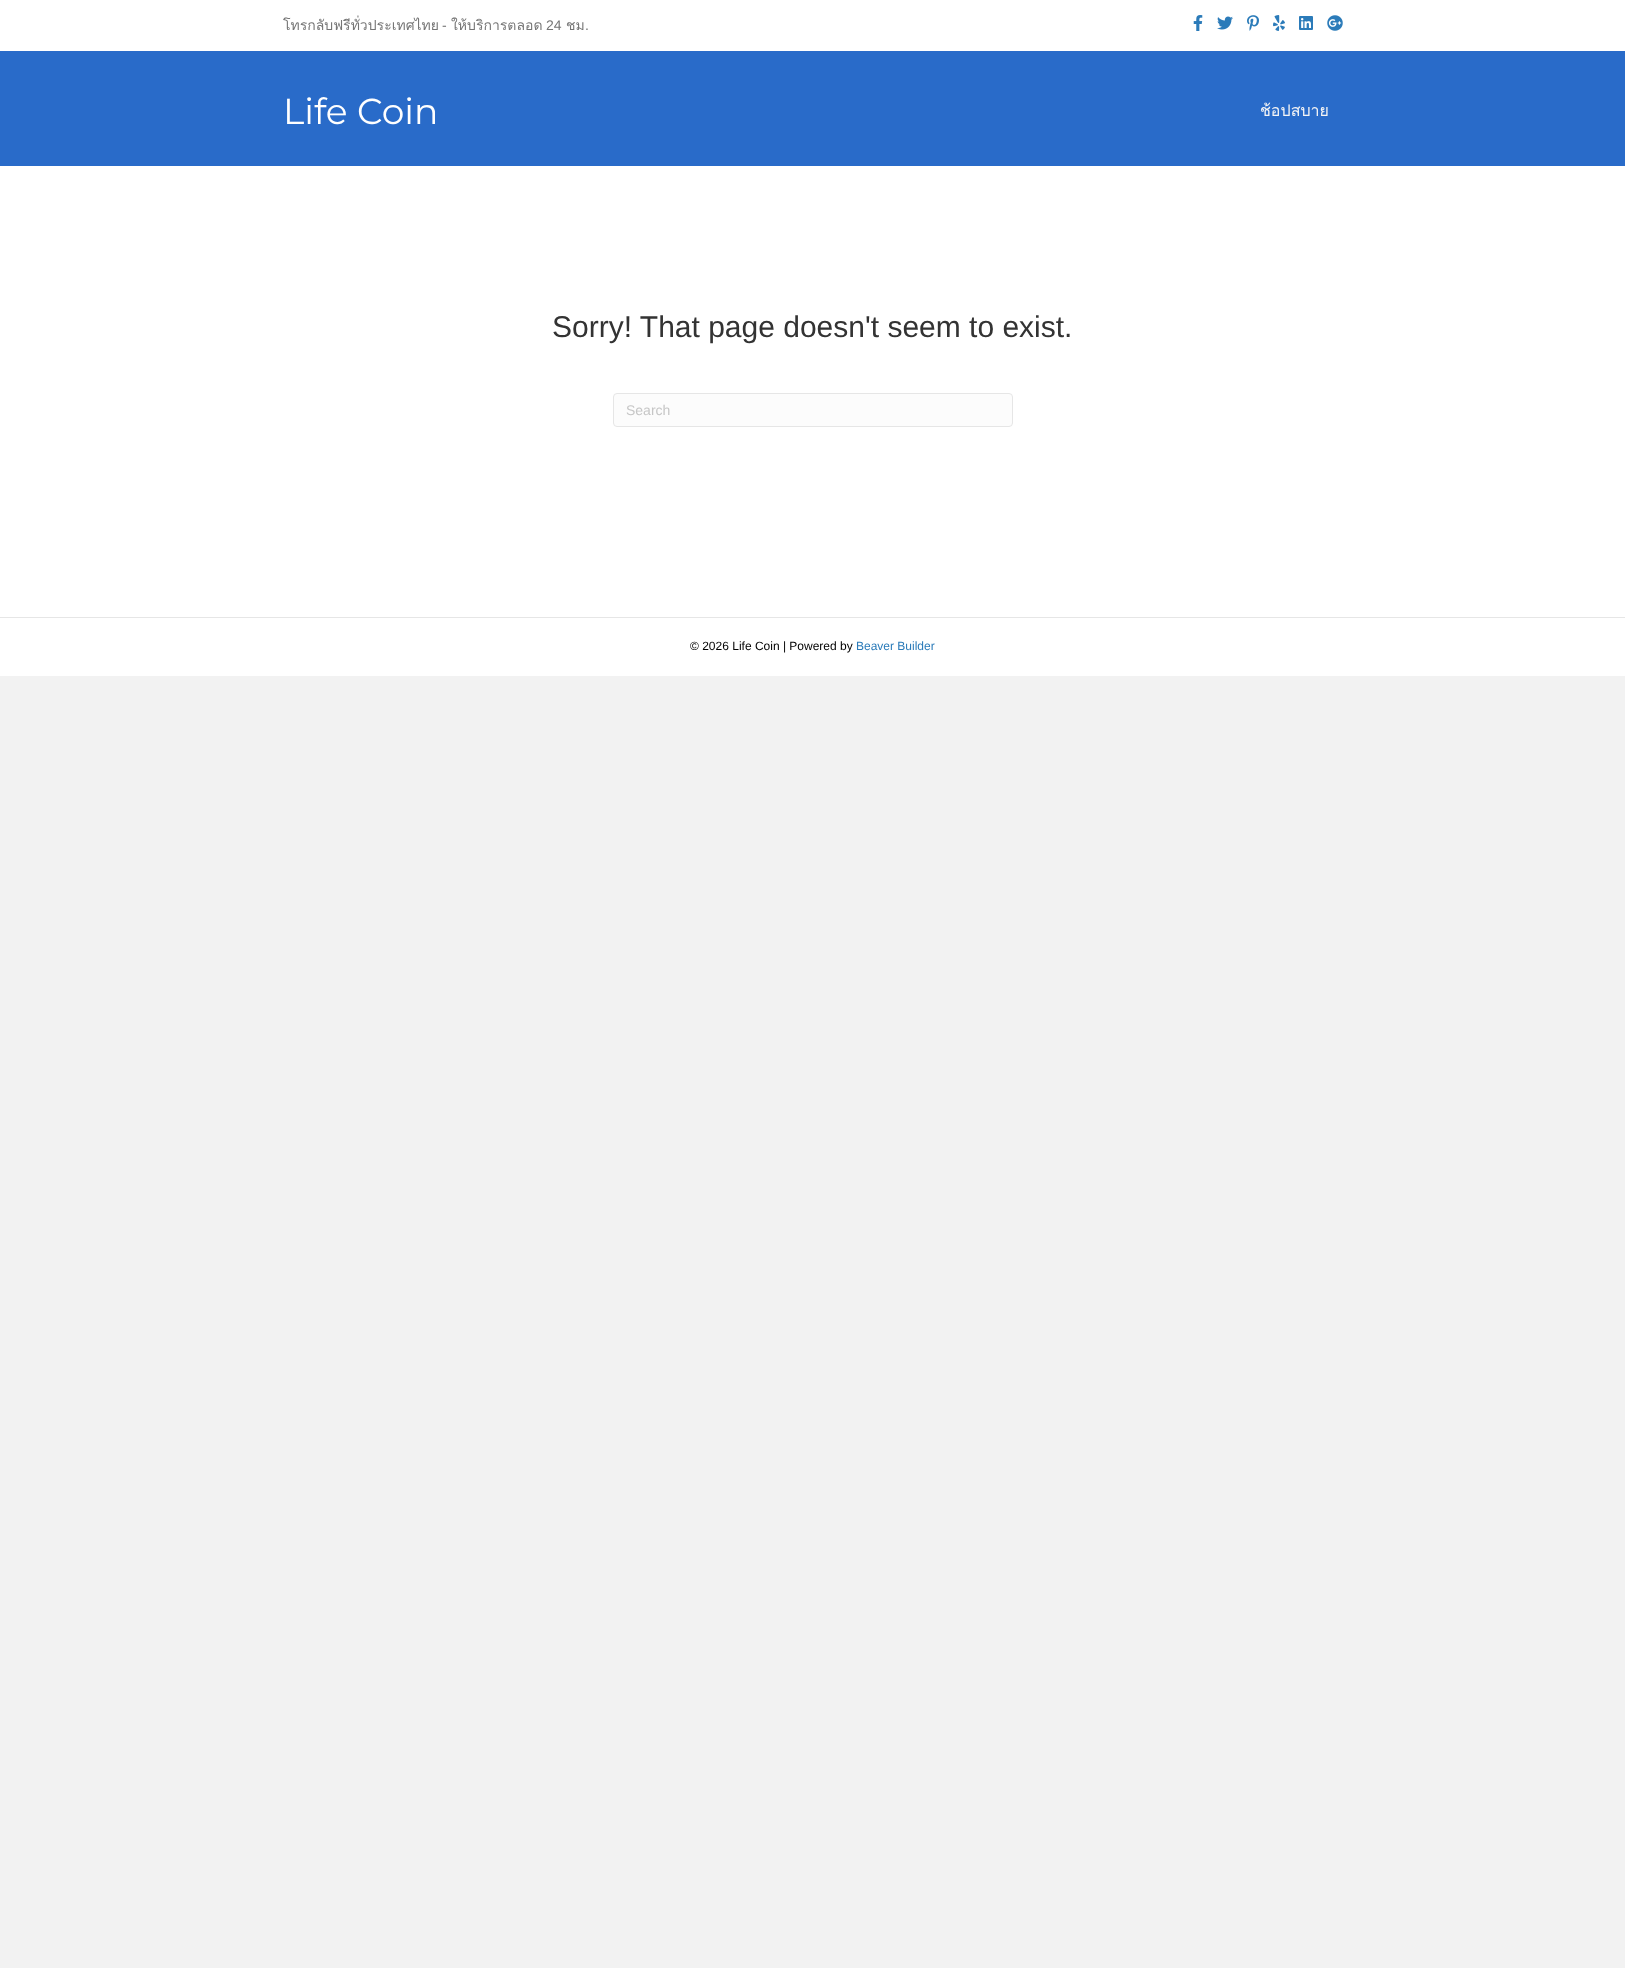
<svg xmlns="http://www.w3.org/2000/svg" width="1625" height="1968">
<style>
.a{font:14px Loma;fill:#757575}
.b{font:14px Liberation Sans;fill:#757575}
.c{font:100 36px Montserrat;fill:#fff}
.d{font:16px Loma;fill:#f5f5f5}
.e{font:30px Liberation Sans;fill:#333}
.f{font:14px Liberation Sans;fill:#c6c6c6}
.g{font:12px Liberation Sans;fill:#000}
.h{font:12px Liberation Sans;fill:#2b7bb9}
</style>
<rect width="100%" height="100%" fill="#f2f2f2"/>
<path fill="#fff" d="M0 0h1625v51H0z"/>
<image href="1.png" x="1193" y="15" width="10" height="16"/>
<image href="2.png" x="1217" y="16" width="16" height="14"/>
<image href="3.png" x="1247" y="15" width="12" height="16"/>
<image href="4.png" x="1273" y="15" width="12" height="16"/>
<image href="5.png" x="1299" y="16" width="14" height="14"/>
<image href="6.png" x="1327" y="15" width="16" height="16"/>
<path fill="#296bc9" d="M0 51h1625v115H0z"/>
<path fill="#fff" d="M0 166h1625v451H0z"/>
<rect fill="#fcfcfc" stroke="#e6e6e6" x="613.5" y="393.5" width="399" height="33" rx="3.5"/>
<path fill="#fff" d="M0 618h1625v58H0z"/>
<path fill="#e6e6e6" d="M0 617h1625v1H0z"/>
<text class="a" x="283" y="30">โทรกลับฟรีทั่วประเทศไทย</text>
<text class="b" x="442" y="30">-</text>
<text class="a" x="451" y="30">ให้บริการตลอด</text>
<text class="b" x="546" y="30">24</text>
<text class="a" x="566" y="30">ชม</text>
<text class="b" x="585" y="30">.</text>
<text class="c" x="283" y="124">Life Coin</text>
<text class="d" x="1260" y="116">ช้อปสบาย</text>
<text class="e" x="552" y="337">Sorry! That page doesn't seem to exist.</text>
<text class="f" x="626" y="415">Search</text>
<text class="g" x="690" y="650">© 2026 Life Coin | Powered by</text>
<text class="h" x="856" y="650">Beaver Builder</text>
</svg>
